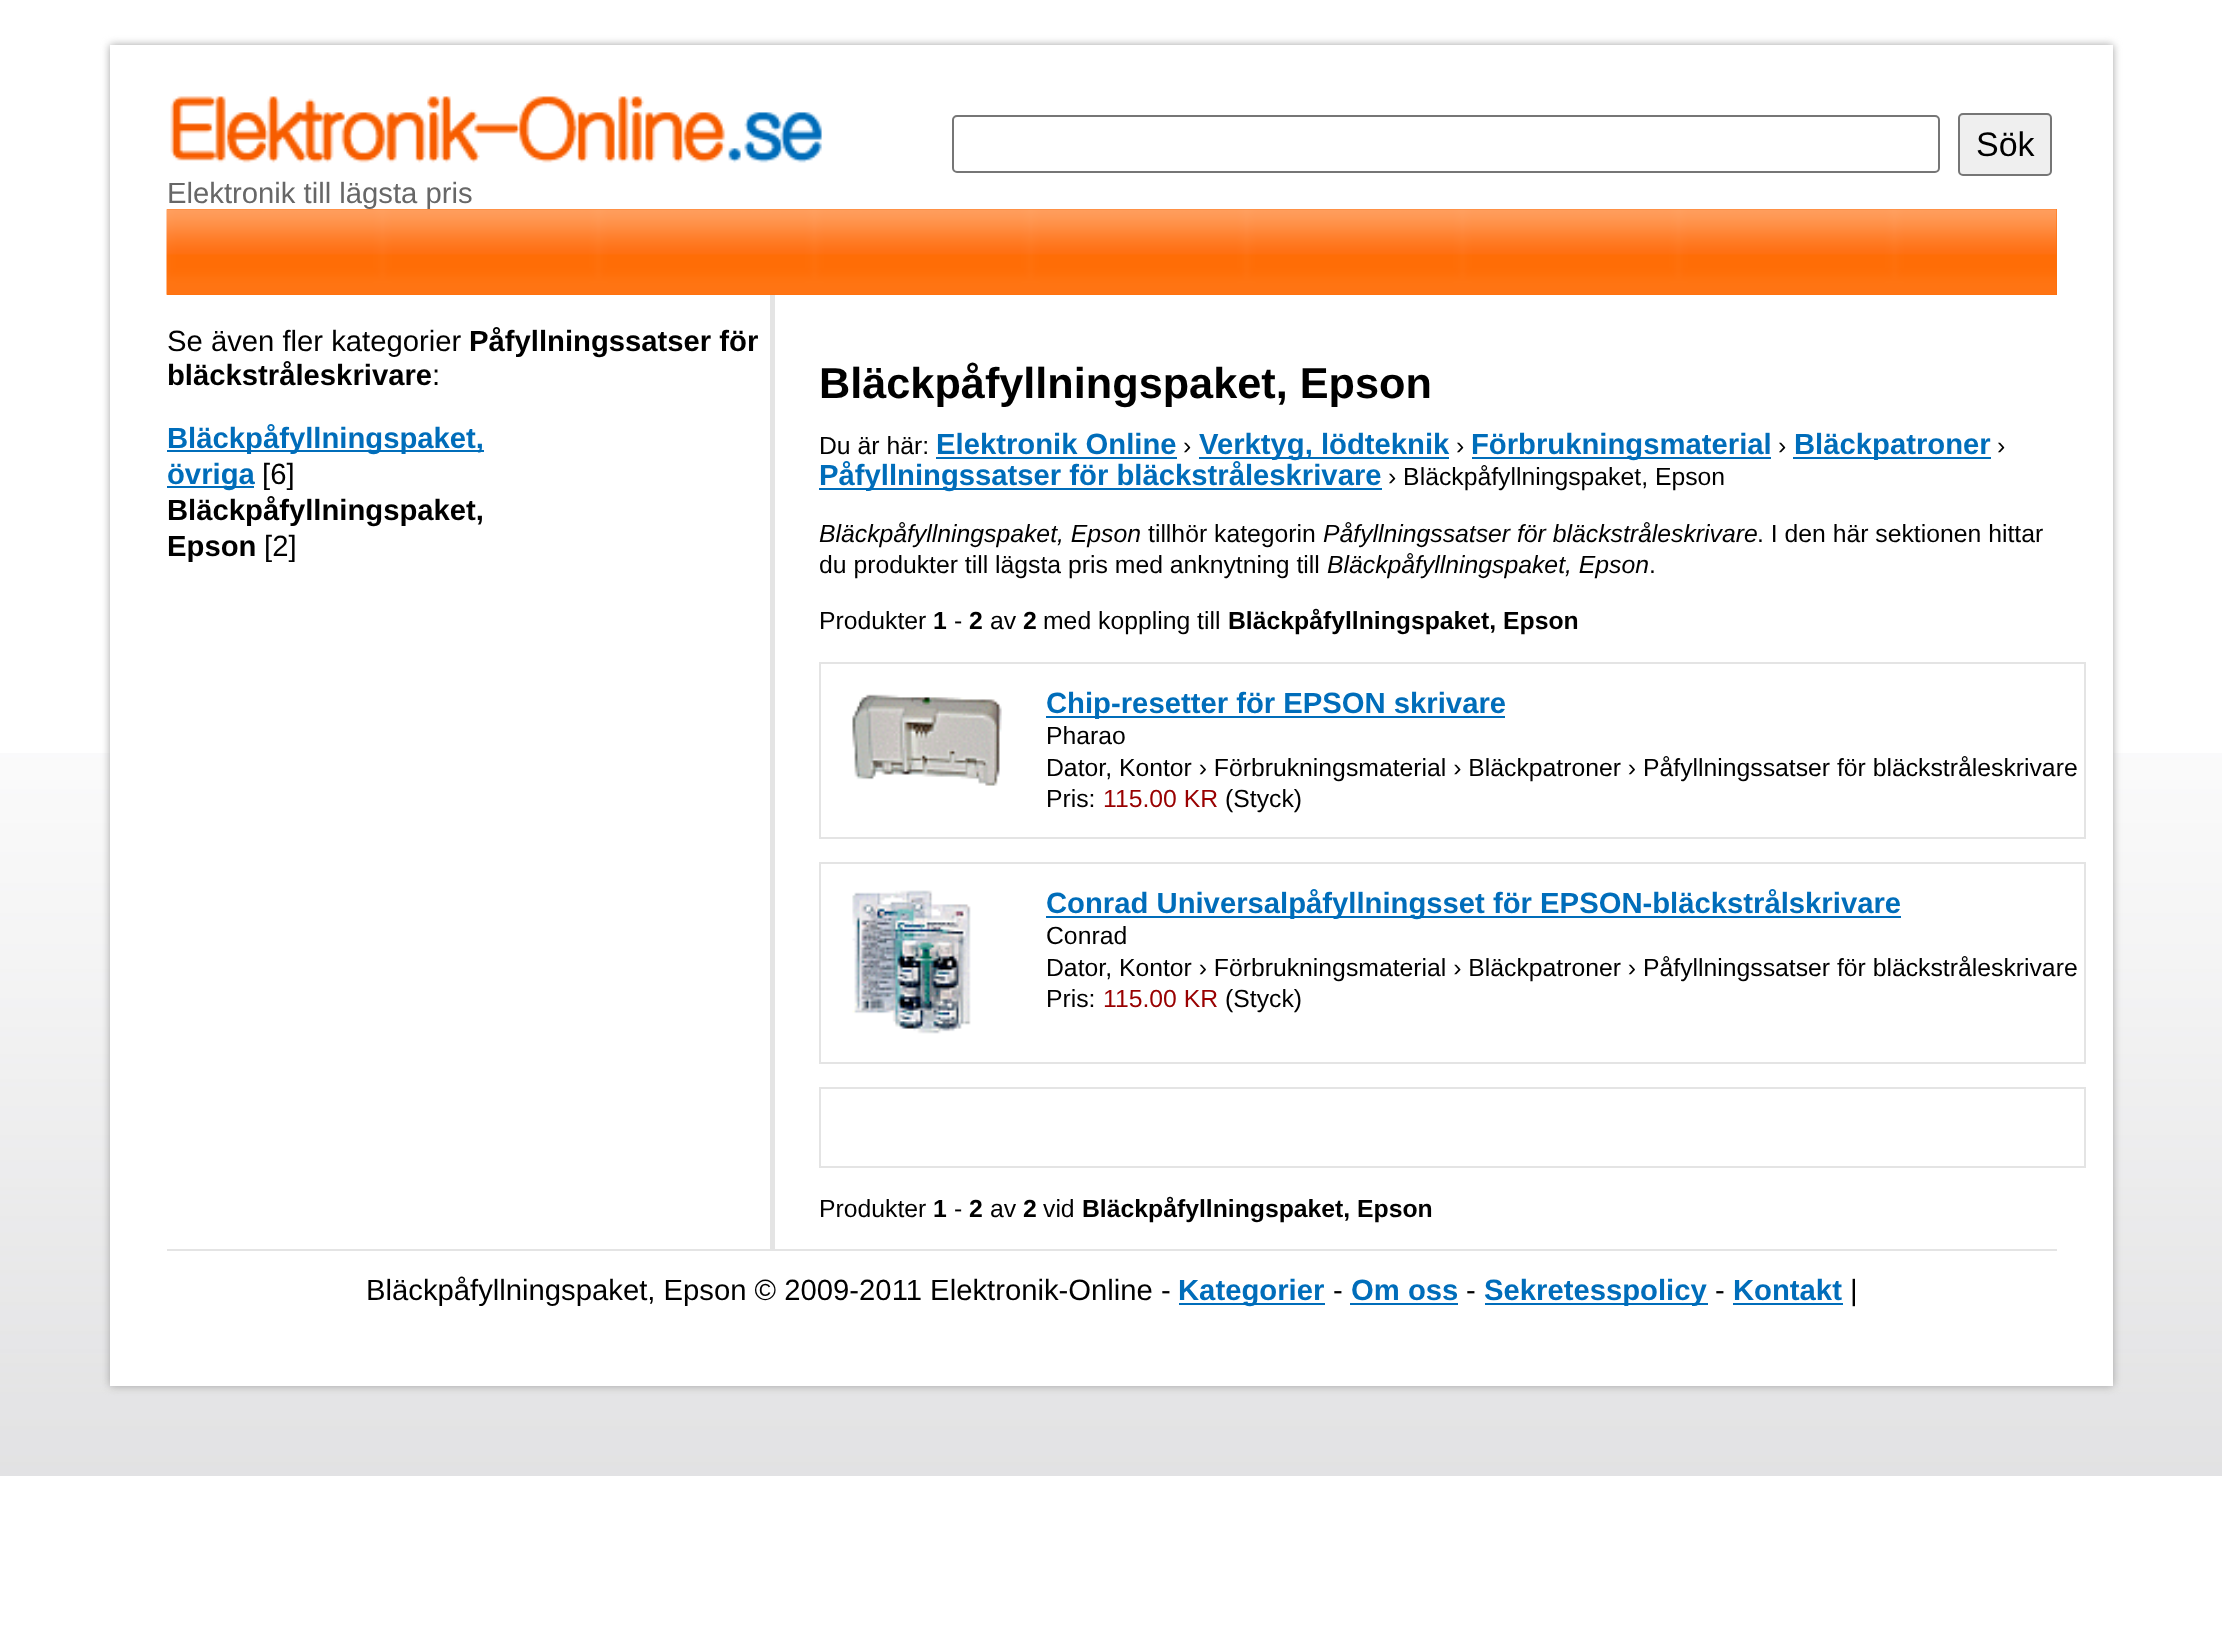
<svg xmlns="http://www.w3.org/2000/svg" width="2222" height="1646">
<style>
.a{font:34px Liberation Sans;fill:#000}
.b{font:29.25px Liberation Sans;fill:#676767}
.c{font:29.25px Liberation Sans;fill:#000}
.d{font:bold 29.25px Liberation Sans;fill:#000}
.e{font:bold 29.25px Liberation Sans;fill:#006dba}
.f{font:bold 43.25px Liberation Sans;fill:#000}
.g{font:24.75px Liberation Sans;fill:#000}
.h{font:italic 24.75px Liberation Sans;fill:#000}
.i{font:bold 24.75px Liberation Sans;fill:#000}
.j{font:24.75px Liberation Sans;fill:#900}
</style>
<rect width="100%" height="100%" fill="#fff"/>
<image href="1.png" x="0" y="753" width="2222" height="723"/>
<path fill="#a1a1a1" filter="blur(4.5px)" d="M110 45h2003v1341H110z"/>
<path fill="#fff" d="M110 45h2003v1341H110z"/>
<rect fill="none" stroke="#767676" stroke-width="2" x="953" y="116" width="986" height="56" rx="4"/>
<rect fill="#efefef" stroke="#767676" stroke-width="2" x="1959" y="114" width="92" height="61" rx="4"/>
<image href="2.png" x="170" y="96" width="652" height="67"/>
<path fill="#ff6d06" d="M167 209h1890v86H167z"/>
<image href="3.png" x="166" y="209" width="1891" height="86"/>
<path fill="#006dba" d="M167 450h317v2H167z"/>
<path fill="#006dba" d="M167 486h87v2H167z"/>
<path fill="#e4e4e4" d="M770 295h5v954H770z"/>
<path fill="#006dba" d="M936 457h241v2H936z"/>
<path fill="#006dba" d="M1199 457h250v2H1199z"/>
<path fill="#006dba" d="M1472 457h299v2H1472z"/>
<path fill="#006dba" d="M1793 457h198v2H1793z"/>
<path fill="#006dba" d="M819 488h563v2H819z"/>
<path fill="none" stroke="#e4e4e4" stroke-width="2" d="M820 663h1265v175H820z"/>
<image href="4.png" x="852" y="694" width="150" height="92"/>
<path fill="#006dba" d="M1046 716h459v2H1046z"/>
<path fill="none" stroke="#e4e4e4" stroke-width="2" d="M820 863h1265v200H820z"/>
<image href="5.png" x="852" y="890" width="119" height="144"/>
<path fill="#006dba" d="M1046 916h855v2H1046z"/>
<path fill="none" stroke="#e4e4e4" stroke-width="2" d="M820 1088h1265v79H820z"/>
<path fill="#e4e4e4" d="M167 1249h1890v2H167z"/>
<path fill="#006dba" d="M1179 1303h146v2H1179z"/>
<path fill="#006dba" d="M1350 1303h108v2H1350z"/>
<path fill="#006dba" d="M1485 1303h223v2H1485z"/>
<path fill="#006dba" d="M1733 1303h110v2H1733z"/>
<text class="a" x="1976" y="156">Sök</text>
<text class="b" x="167" y="203">Elektronik till lägsta pris</text>
<text class="c" x="167" y="351">Se även fler kategorier</text>
<text class="d" x="469" y="351">Påfyllningssatser för</text>
<text class="d" x="167" y="385">bläckstråleskrivare</text>
<text class="c" x="432" y="385">:</text>
<text class="e" x="167" y="448">Bläckpåfyllningspaket,</text>
<text class="e" x="167" y="484">övriga</text>
<text class="c" x="262" y="484">[6]</text>
<text class="d" x="167" y="520">Bläckpåfyllningspaket,</text>
<text class="d" x="167" y="556">Epson</text>
<text class="c" x="264" y="556">[2]</text>
<text class="f" x="819" y="398">Bläckpåfyllningspaket, Epson</text>
<text class="g" x="819" y="454">Du är här:</text>
<text class="e" x="936" y="454">Elektronik Online</text>
<text class="g" x="1183" y="454">›</text>
<text class="e" x="1199" y="454">Verktyg, lödteknik</text>
<text class="g" x="1456" y="454">›</text>
<text class="e" x="1471" y="454">Förbrukningsmaterial</text>
<text class="g" x="1778" y="454">›</text>
<text class="e" x="1794" y="454">Bläckpatroner</text>
<text class="g" x="1997" y="454">›</text>
<text class="e" x="819" y="485">Påfyllningssatser för bläckstråleskrivare</text>
<text class="g" x="1388" y="485">› Bläckpåfyllningspaket, Epson</text>
<text class="h" x="819" y="542">Bläckpåfyllningspaket, Epson</text>
<text class="g" x="1148" y="542">tillhör kategorin</text>
<text class="h" x="1323" y="542">Påfyllningssatser för bläckstråleskrivare</text>
<text class="g" x="1757" y="542">. I den här sektionen hittar</text>
<text class="g" x="819" y="573">du produkter till lägsta pris med anknytning till</text>
<text class="h" x="1327" y="573">Bläckpåfyllningspaket, Epson</text>
<text class="g" x="1649" y="573">.</text>
<text class="g" x="819" y="629">Produkter</text>
<text class="i" x="933" y="629">1</text>
<text class="g" x="954" y="629">-</text>
<text class="i" x="969" y="629">2</text>
<text class="g" x="990" y="629">av</text>
<text class="i" x="1023" y="629">2</text>
<text class="g" x="1043" y="629">med koppling till</text>
<text class="i" x="1228" y="629">Bläckpåfyllningspaket, Epson</text>
<text class="e" x="1046" y="713">Chip-resetter för EPSON skrivare</text>
<text class="g" x="1046" y="744">Pharao</text>
<text class="g" x="1046" y="776">Dator, Kontor › Förbrukningsmaterial › Bläckpatroner › Påfyllningssatser för bläckstråleskrivare</text>
<text class="g" x="1046" y="807">Pris:</text>
<text class="j" x="1103" y="807">115.00 KR</text>
<text class="g" x="1225" y="807">(Styck)</text>
<text class="e" x="1046" y="913">Conrad Universalpåfyllningsset för EPSON-bläckstrålskrivare</text>
<text class="g" x="1046" y="944">Conrad</text>
<text class="g" x="1046" y="976">Dator, Kontor › Förbrukningsmaterial › Bläckpatroner › Påfyllningssatser för bläckstråleskrivare</text>
<text class="g" x="1046" y="1007">Pris:</text>
<text class="j" x="1103" y="1007">115.00 KR</text>
<text class="g" x="1225" y="1007">(Styck)</text>
<text class="g" x="819" y="1217">Produkter</text>
<text class="i" x="933" y="1217">1</text>
<text class="g" x="954" y="1217">-</text>
<text class="i" x="969" y="1217">2</text>
<text class="g" x="990" y="1217">av</text>
<text class="i" x="1023" y="1217">2</text>
<text class="g" x="1043" y="1217">vid</text>
<text class="i" x="1082" y="1217">Bläckpåfyllningspaket, Epson</text>
<text class="c" x="366" y="1300">Bläckpåfyllningspaket, Epson © 2009-2011 Elektronik-Online -</text>
<text class="e" x="1178" y="1300">Kategorier</text>
<text class="c" x="1333" y="1300">-</text>
<text class="e" x="1351" y="1300">Om oss</text>
<text class="c" x="1466" y="1300">-</text>
<text class="e" x="1484" y="1300">Sekretesspolicy</text>
<text class="c" x="1715" y="1300">-</text>
<text class="e" x="1733" y="1300">Kontakt</text>
<text class="c" x="1850" y="1300">|</text>
</svg>
